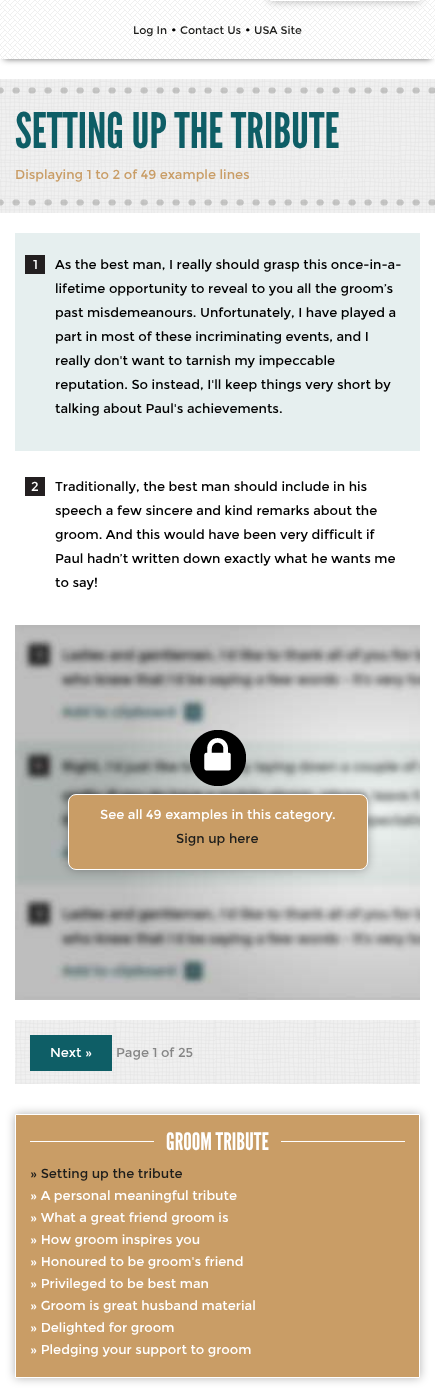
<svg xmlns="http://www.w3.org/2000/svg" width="435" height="1391">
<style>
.a{font:11px Montserrat;fill:#1d1d1b}
.b{font:13px Montserrat;fill:#000}
.c{font:49px League Gothic;fill:#0e5e66}
.d{font:13px Montserrat;fill:#c99d66}
.e{font:13px Montserrat;fill:#fff}
.f{font:13px Montserrat;fill:#1d1d1b}
.g{font:13px Montserrat;fill:#868686}
.h{font:24px League Gothic;fill:#fff}
</style>
<rect width="100%" height="100%" fill="#fff"/>
<path fill="#00000099" filter="blur(3px)" d="M4 -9h427v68H4z"/>
<image href="1.png" x="0" y="0" width="435" height="59"/>
<path fill="#0000004d" filter="blur(5px)" d="M270 -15h150v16H270z"/>
<path fill="none" stroke="#fff" d="M270.5 -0.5h149v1H270.5z"/>
<image href="2.png" x="0" y="79" width="435" height="134"/>
<image href="3.png" x="0" y="87" width="435" height="7"/>
<image href="4.png" x="0" y="199" width="435" height="7"/>
<path fill="#e6efef" d="M15 233h405v218H15z"/>
<path fill="#231f20" d="M25 255h20v19H25z"/>
<path fill="#231f20" d="M25 477h20v19H25z"/>
<image href="5.png" x="15" y="625" width="405" height="375"/>
<image href="6.png" x="190" y="730" width="56" height="56"/>
<rect fill="#0000004d" filter="blur(5px)" x="68" y="794" width="300" height="76" rx="8"/>
<rect fill="#c99d66" stroke="#fff" x="68.5" y="794.5" width="299" height="75" rx="7.5"/>
<image href="7.png" x="15" y="1020" width="405" height="64"/>
<path fill="#0e5e66" d="M30 1035h82v36H30z"/>
<path fill="#0000004d" filter="blur(5px)" d="M15 1114h405v264H15z"/>
<path fill="#c99d66" stroke="#fff" d="M15.5 1114.5h404v263H15.5z"/>
<path fill="#fff" d="M30 1141h375v1H30z"/>
<path fill="#c99d66" d="M154 1141h127v1H154z"/>
<text class="a" x="133" y="34">Log In</text>
<text class="b" x="171" y="34">•</text>
<text class="a" x="180" y="34">Contact Us</text>
<text class="b" x="245" y="34">•</text>
<text class="a" x="254" y="34">USA Site</text>
<text class="c" x="15" y="148">SETTING UP THE TRIBUTE</text>
<text class="d" x="15" y="179">Displaying 1 to 2 of 49 example lines</text>
<text class="e" x="33" y="269">1</text>
<text class="b" x="55" y="269">As the best man, I really should grasp this once-in-a-</text>
<text class="b" x="55" y="293">lifetime opportunity to reveal to you all the groom’s</text>
<text class="b" x="55" y="317">past misdemeanours. Unfortunately, I have played a</text>
<text class="b" x="55" y="341">part in most of these incriminating events, and I</text>
<text class="b" x="55" y="365">really don't want to tarnish my impeccable</text>
<text class="b" x="55" y="389">reputation. So instead, I'll keep things very short by</text>
<text class="b" x="55" y="413">talking about Paul's achievements.</text>
<text class="e" x="31" y="491">2</text>
<text class="b" x="55" y="491">Traditionally, the best man should include in his</text>
<text class="b" x="55" y="515">speech a few sincere and kind remarks about the</text>
<text class="b" x="55" y="539">groom. And this would have been very difficult if</text>
<text class="b" x="55" y="563">Paul hadn’t written down exactly what he wants me</text>
<text class="b" x="55" y="587">to say!</text>
<text class="e" x="100" y="819">See all 49 examples in this category.</text>
<text class="f" x="176" y="843">Sign up here</text>
<text class="e" x="50" y="1057">Next »</text>
<text class="g" x="116" y="1057">Page 1 of 25</text>
<text class="h" x="166" y="1150">GROOM TRIBUTE</text>
<text class="f" x="30" y="1178">» Setting up the tribute</text>
<text class="e" x="30" y="1200">» A personal meaningful tribute</text>
<text class="e" x="30" y="1222">» What a great friend groom is</text>
<text class="e" x="30" y="1244">» How groom inspires you</text>
<text class="e" x="30" y="1266">» Honoured to be groom's friend</text>
<text class="e" x="30" y="1288">» Privileged to be best man</text>
<text class="e" x="30" y="1310">» Groom is great husband material</text>
<text class="e" x="30" y="1332">» Delighted for groom</text>
<text class="e" x="30" y="1354">» Pledging your support to groom</text>
</svg>
